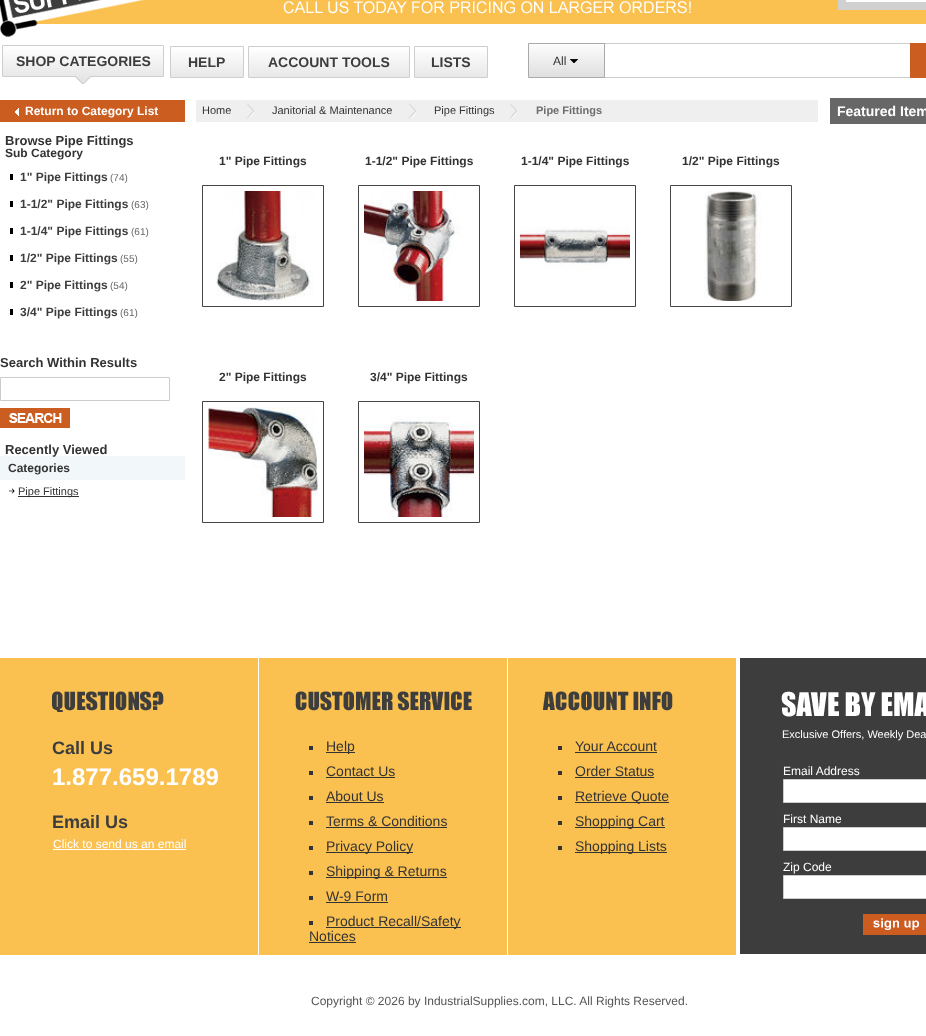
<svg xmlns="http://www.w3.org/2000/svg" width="926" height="1036">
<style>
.a{font:bold 14px Liberation Sans;fill:#3d3d3d}
.b{font:12px Liberation Sans;fill:#333}
.c{font:bold 12px Liberation Sans;fill:#fff}
.d{font:11px Liberation Sans;fill:#333}
.e{font:bold 11px Liberation Sans;fill:#6e6e6e}
.f{font:bold 14px Liberation Sans;fill:#fff}
.g{font:bold 13px Liberation Sans;fill:#333}
.h{font:bold 12px Liberation Sans;fill:#333}
.i{font:bold 12px Liberation Sans;fill:#3d3d3d}
.j{font:10px Liberation Sans;fill:#666}
.k{font:bold 18px Liberation Sans;fill:#3d3d3d}
.l{font:bold 24px Liberation Sans;fill:#fff}
.m{font:12px Liberation Sans;fill:#fff}
.n{font:14px Liberation Sans;fill:#333}
.o{font:11px Liberation Sans;fill:#fff}
.p{font:12px Liberation Sans;fill:#555}
</style>
<defs>
<linearGradient id="g1" gradientUnits="userSpaceOnUse" x1="83" y1="46" x2="83" y2="76"><stop offset="0" stop-color="#fff"/><stop offset="1" stop-color="#e8e8e8"/></linearGradient>
<linearGradient id="g2" gradientUnits="userSpaceOnUse" x1="207" y1="47" x2="207" y2="77"><stop offset="0" stop-color="#fff"/><stop offset="1" stop-color="#e8e8e8"/></linearGradient>
<linearGradient id="g3" gradientUnits="userSpaceOnUse" x1="329" y1="47" x2="329" y2="77"><stop offset="0" stop-color="#fff"/><stop offset="1" stop-color="#e8e8e8"/></linearGradient>
<linearGradient id="g4" gradientUnits="userSpaceOnUse" x1="451" y1="47" x2="451" y2="77"><stop offset="0" stop-color="#fff"/><stop offset="1" stop-color="#e8e8e8"/></linearGradient>
<linearGradient id="g5" gradientUnits="userSpaceOnUse" x1="567" y1="44" x2="567" y2="77"><stop offset="0" stop-color="#fcfcfc"/><stop offset="1" stop-color="#dfdfdf"/></linearGradient>
</defs>
<rect width="100%" height="100%" fill="#fff"/>
<image href="1.png" x="35" y="0" width="891" height="24"/>
<image href="2.png" x="0" y="0" width="145" height="37"/>
<path fill="#fff" stroke="#d0d0d0" stroke-width="8" d="M842 -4h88v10H842z"/>
<path fill="url(#g1)" d="M3 49h160v27H3z"/>
<path fill="none" stroke="#cecece" d="M2.5 45.5h161v31H2.5z"/>
<image href="3.png" x="75" y="76" width="16" height="8"/>
<path fill="url(#g2)" d="M171 50h72v27H171z"/>
<path fill="none" stroke="#cecece" d="M170.5 46.5h73v31H170.5z"/>
<path fill="url(#g3)" d="M249 50h160v27H249z"/>
<path fill="none" stroke="#cecece" d="M248.5 46.5h161v31H248.5z"/>
<path fill="url(#g4)" d="M415 50h72v27H415z"/>
<path fill="none" stroke="#cecece" d="M414.5 46.5h73v31H414.5z"/>
<path fill="url(#g5)" d="M529 44h75v33H529z"/>
<path fill="none" stroke="#ccc" d="M604.5 43.5h306v34H604.5z"/>
<path fill="none" stroke="#a9a9a9" d="M528.5 43.5h76v34H528.5z"/>
<image href="4.png" x="570" y="59" width="8" height="4"/>
<path fill="#cb5d20" d="M910 43h16v35H910z"/>
<image href="5.png" x="0" y="100" width="185" height="22"/>
<path fill="#efefef" d="M196 100h622v22H196z"/>
<image href="6.png" x="246" y="103" width="8" height="16"/>
<image href="6.png" x="408" y="103" width="8" height="16"/>
<image href="6.png" x="509" y="103" width="8" height="16"/>
<path fill="#676767" d="M830 98h96v26H830z"/>
<path fill="#000" d="M10 174h3v6H10z"/>
<path fill="#000" d="M10 201h3v6H10z"/>
<path fill="#000" d="M10 228h3v6H10z"/>
<path fill="#000" d="M10 255h3v6H10z"/>
<path fill="#000" d="M10 282h3v6H10z"/>
<path fill="#000" d="M10 309h3v6H10z"/>
<path fill="none" stroke="#ccc" d="M0.5 377.5h169v23H0.5z"/>
<image href="7.png" x="0" y="408" width="70" height="20"/>
<path fill="#f2f7f9" d="M0 456h185v24H0z"/>
<image href="8.png" x="9" y="488" width="6" height="6"/>
<path fill="#333" d="M18 496h61v1H18z"/>
<path fill="none" stroke="#454545" d="M202.5 185.5h121v121H202.5z"/>
<image href="9.png" x="216" y="191" width="98" height="110"/>
<path fill="none" stroke="#454545" d="M358.5 185.5h121v121H358.5z"/>
<image href="10.png" x="364" y="191" width="97" height="110"/>
<path fill="none" stroke="#454545" d="M514.5 185.5h121v121H514.5z"/>
<image href="11.png" x="520" y="226" width="110" height="44"/>
<path fill="none" stroke="#454545" d="M670.5 185.5h121v121H670.5z"/>
<image href="12.png" x="704" y="191" width="58" height="110"/>
<path fill="none" stroke="#454545" d="M202.5 401.5h121v121H202.5z"/>
<image href="13.png" x="208" y="407" width="110" height="110"/>
<path fill="none" stroke="#454545" d="M358.5 401.5h121v121H358.5z"/>
<image href="14.png" x="364" y="416" width="110" height="101"/>
<path fill="#fac150" d="M0 658h258v297H0z"/>
<image href="15.png" x="52" y="691" width="112" height="21"/>
<path fill="#fff" d="M53 849h133v1H53z"/>
<path fill="#fac150" d="M259 658h248v297H259z"/>
<image href="16.png" x="295" y="691" width="177" height="20"/>
<path fill="#333" d="M309 746h4v4H309z"/>
<path fill="#333" d="M326 752h29v1H326z"/>
<path fill="#333" d="M309 771h4v4H309z"/>
<path fill="#333" d="M326 777h69v1H326z"/>
<path fill="#333" d="M309 796h4v4H309z"/>
<path fill="#333" d="M326 802h58v1H326z"/>
<path fill="#333" d="M309 821h4v4H309z"/>
<path fill="#333" d="M326 827h121v1H326z"/>
<path fill="#333" d="M309 846h4v4H309z"/>
<path fill="#333" d="M326 852h87v1H326z"/>
<path fill="#333" d="M309 871h4v4H309z"/>
<path fill="#333" d="M326 877h121v1H326z"/>
<path fill="#333" d="M309 896h4v4H309z"/>
<path fill="#333" d="M326 902h62v1H326z"/>
<path fill="#333" d="M309 921h4v4H309z"/>
<path fill="#333" d="M326 927h135v1H326z"/>
<path fill="#333" d="M309 942h47v1H309z"/>
<path fill="#fac150" d="M508 658h228v297H508z"/>
<image href="17.png" x="543" y="691" width="130" height="20"/>
<path fill="#333" d="M558 746h4v4H558z"/>
<path fill="#333" d="M575 752h82v1H575z"/>
<path fill="#333" d="M558 771h4v4H558z"/>
<path fill="#333" d="M575 777h79v1H575z"/>
<path fill="#333" d="M558 796h4v4H558z"/>
<path fill="#333" d="M575 802h94v1H575z"/>
<path fill="#333" d="M558 821h4v4H558z"/>
<path fill="#333" d="M575 827h90v1H575z"/>
<path fill="#333" d="M558 846h4v4H558z"/>
<path fill="#333" d="M575 852h92v1H575z"/>
<path fill="#3d3d3d" d="M740 658h186v296H740z"/>
<image href="18.png" x="781" y="691" width="145" height="26"/>
<path fill="#fff" stroke="#ccc" d="M783.5 779.5h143v23H783.5z"/>
<path fill="#fff" stroke="#ccc" d="M783.5 827.5h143v23H783.5z"/>
<path fill="#fff" stroke="#ccc" d="M783.5 875.5h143v23H783.5z"/>
<image href="19.png" x="863" y="914" width="63" height="21"/>
<text class="a" x="16" y="66">SHOP CATEGORIES</text>
<text class="a" x="188" y="67">HELP</text>
<text class="a" x="268" y="67">ACCOUNT TOOLS</text>
<text class="a" x="431" y="67">LISTS</text>
<text class="b" x="553" y="65">All</text>
<text class="c" x="25" y="115">Return to Category List</text>
<text class="d" x="202" y="114">Home</text>
<text class="d" x="272" y="114">Janitorial &amp; Maintenance</text>
<text class="d" x="434" y="114">Pipe Fittings</text>
<text class="e" x="536" y="114">Pipe Fittings</text>
<text class="f" x="837" y="116">Featured Item</text>
<text class="g" x="5" y="145">Browse Pipe Fittings</text>
<text class="h" x="5" y="157">Sub Category</text>
<text class="i" x="20" y="181">1" Pipe Fittings</text>
<text class="j" x="110" y="181">(74)</text>
<text class="i" x="20" y="208">1-1/2" Pipe Fittings</text>
<text class="j" x="131" y="208">(63)</text>
<text class="i" x="20" y="235">1-1/4" Pipe Fittings</text>
<text class="j" x="131" y="235">(61)</text>
<text class="i" x="20" y="262">1/2" Pipe Fittings</text>
<text class="j" x="120" y="262">(55)</text>
<text class="i" x="20" y="289">2" Pipe Fittings</text>
<text class="j" x="110" y="289">(54)</text>
<text class="i" x="20" y="316">3/4" Pipe Fittings</text>
<text class="j" x="120" y="316">(61)</text>
<text class="g" x="0" y="367">Search Within Results</text>
<text class="g" x="5" y="454">Recently Viewed</text>
<text class="h" x="8" y="472">Categories</text>
<text class="d" x="18" y="495">Pipe Fittings</text>
<text class="h" x="219" y="165">1" Pipe Fittings</text>
<text class="h" x="365" y="165">1-1/2" Pipe Fittings</text>
<text class="h" x="521" y="165">1-1/4" Pipe Fittings</text>
<text class="h" x="682" y="165">1/2" Pipe Fittings</text>
<text class="h" x="219" y="381">2" Pipe Fittings</text>
<text class="h" x="370" y="381">3/4" Pipe Fittings</text>
<text class="k" x="52" y="754">Call Us</text>
<text class="l" x="52" y="785">1.877.659.1789</text>
<text class="k" x="52" y="828">Email Us</text>
<text class="m" x="53" y="848">Click to send us an email</text>
<text class="n" x="326" y="751">Help</text>
<text class="n" x="326" y="776">Contact Us</text>
<text class="n" x="326" y="801">About Us</text>
<text class="n" x="326" y="826">Terms &amp; Conditions</text>
<text class="n" x="326" y="851">Privacy Policy</text>
<text class="n" x="326" y="876">Shipping &amp; Returns</text>
<text class="n" x="326" y="901">W-9 Form</text>
<text class="n" x="326" y="926">Product Recall/Safety</text>
<text class="n" x="309" y="941">Notices</text>
<text class="n" x="575" y="751">Your Account</text>
<text class="n" x="575" y="776">Order Status</text>
<text class="n" x="575" y="801">Retrieve Quote</text>
<text class="n" x="575" y="826">Shopping Cart</text>
<text class="n" x="575" y="851">Shopping Lists</text>
<text class="o" x="782" y="738">Exclusive Offers, Weekly Dea</text>
<text class="m" x="783" y="775">Email Address</text>
<text class="m" x="783" y="823">First Name</text>
<text class="m" x="783" y="871">Zip Code</text>
<text class="p" x="311" y="1005">Copyright © 2026 by IndustrialSupplies.com, LLC. All Rights Reserved.</text>
</svg>
